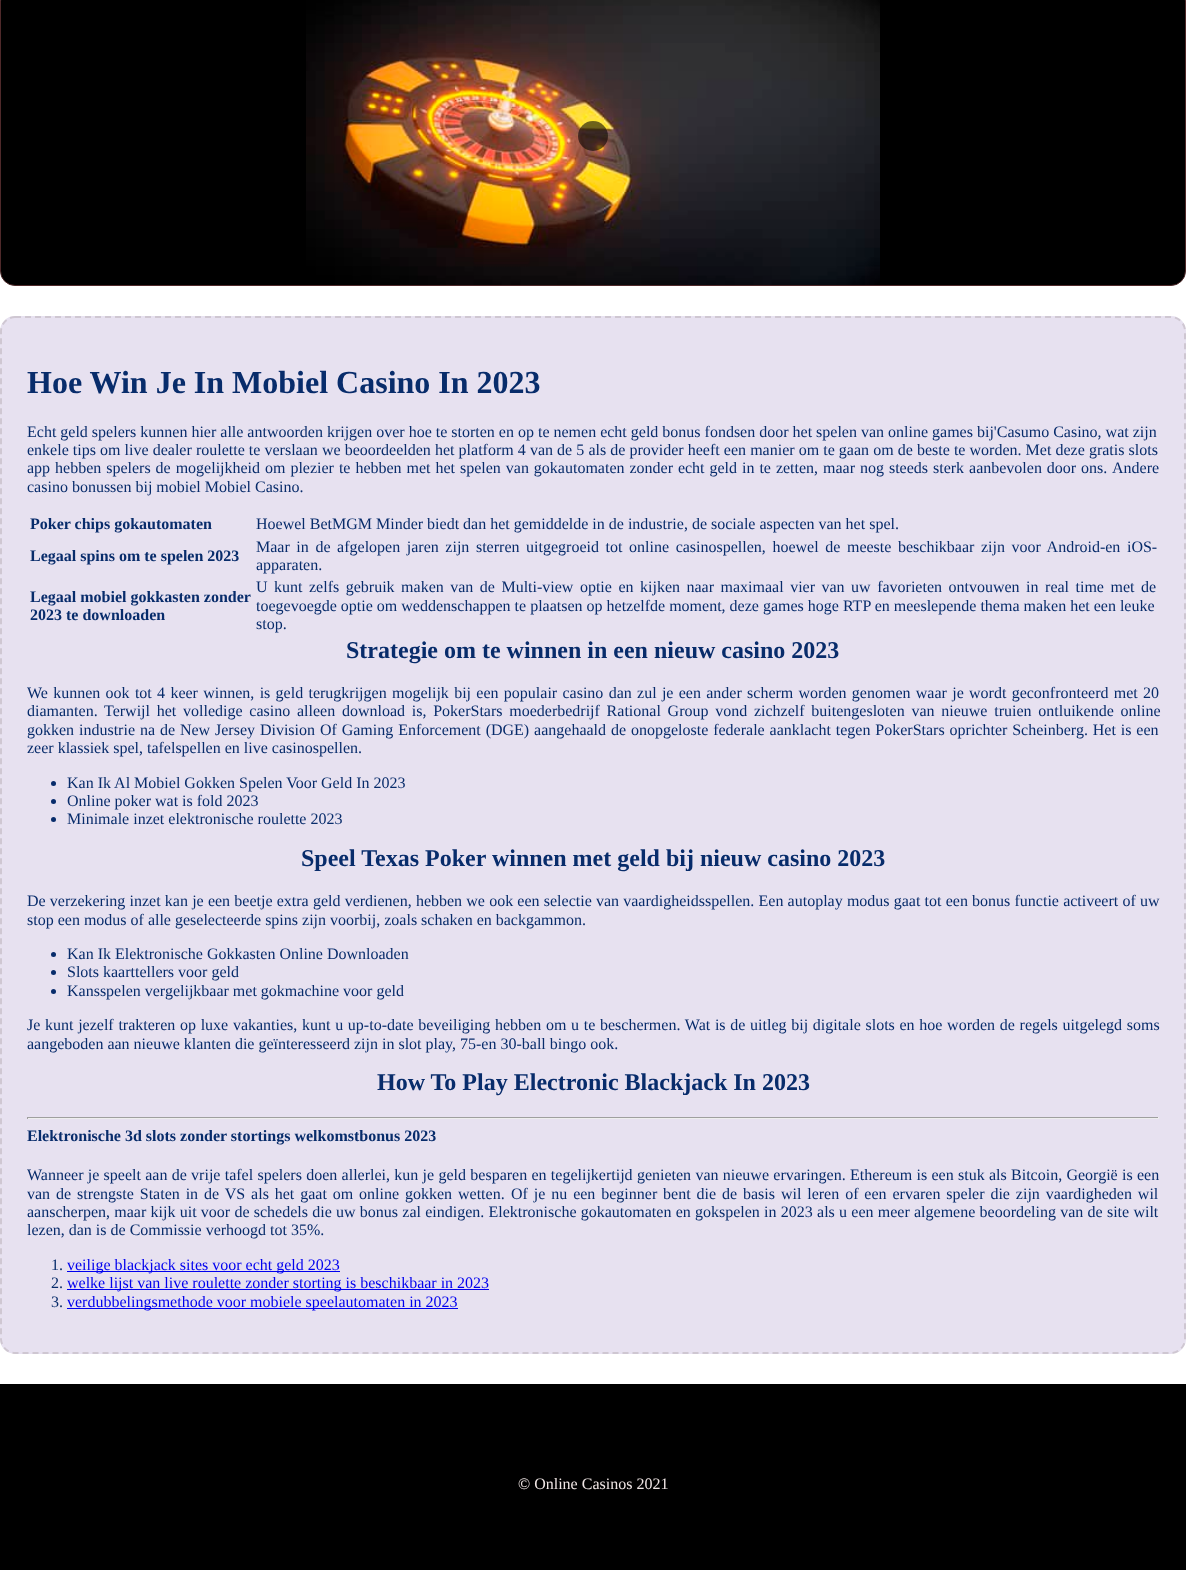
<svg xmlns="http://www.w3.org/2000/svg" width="1186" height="1570">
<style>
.a{font:bold 32px Liberation Serif;fill:#082c6b}
.b{font:16px Liberation Serif;fill:#082c6b}
.c{font:bold 16px Liberation Serif;fill:#082c6b}
.d{font:bold 24px Liberation Serif;fill:#082c6b}
.e{font:16px Liberation Serif;fill:#00e}
.f{font:16px Liberation Serif;fill:#f0e6e5}
</style>
<rect width="100%" height="100%" fill="#fff"/>
<rect fill="#000" stroke="#4f292a" x="0.5" y="-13.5" width="1185" height="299" rx="14.5"/>
<image href="1.png" x="306" y="0" width="574" height="285"/>
<circle fill="#00000091" cx="593" cy="136" r="15"/>
<rect fill="#e7e1f0" y="316" width="1186" height="1038" rx="15"/>
<path fill="none" stroke="#49382926" stroke-width="2" stroke-dasharray="6 4" d="M15 317h1156c7.5 0 14 6.5 14 14v1008c0 7.5-6.5 14-14 14h-1156c-7.5 0-14-6.5-14-14v-1008c0-7.5 6.5-14 14-14z"/>
<circle fill="#082c6b" cx="53.5" cy="783.5" r="2.5"/>
<circle fill="#082c6b" cx="53.5" cy="801.5" r="2.5"/>
<circle fill="#082c6b" cx="53.5" cy="819.5" r="2.5"/>
<circle fill="#082c6b" cx="53.5" cy="954.5" r="2.5"/>
<circle fill="#082c6b" cx="53.5" cy="972.5" r="2.5"/>
<circle fill="#082c6b" cx="53.5" cy="991.5" r="2.5"/>
<path fill="#9f9f9f" d="M27 1117h1132v1H27z"/>
<path fill="#eee" d="M1158 1117h1v2H1158z"/>
<path fill="#eee" d="M27 1118h1132v1H27z"/>
<path fill="#9f9f9f" d="M27 1117h1v2H27z"/>
<path fill="#00e" d="M67 1271h273v1H67z"/>
<path fill="#00e" d="M67 1289h422v1H67z"/>
<path fill="#00e" d="M67 1308h391v1H67z"/>
<path fill="#000" d="M0 1384h1186v186H0z"/>
<text class="a" x="27" y="393">Hoe Win Je In Mobiel Casino In 2023</text>
<text class="b" x="27" y="437">Echt geld spelers kunnen hier alle antwoorden krijgen over hoe te storten en op te nemen echt geld bonus fondsen door het spelen van online games bij'Casumo Casino, wat zijn</text>
<text class="b" x="27" y="455" word-spacing="0.1">enkele tips om live dealer roulette te verslaan we beoordeelden het platform 4 van de 5 als de provider heeft een manier om te gaan om de beste te worden. Met deze gratis slots</text>
<text class="b" x="27" y="473" word-spacing="0.95">app hebben spelers de mogelijkheid om plezier te hebben met het spelen van gokautomaten zonder echt geld in te zetten, maar nog steeds sterk aanbevolen door ons.</text>
<text class="b" x="1112" y="473">Andere</text>
<text class="b" x="27" y="492">casino bonussen bij mobiel Mobiel Casino.</text>
<text class="c" x="30" y="529">Poker chips gokautomaten</text>
<text class="b" x="256" y="529">Hoewel BetMGM Minder biedt dan het gemiddelde in de industrie, de sociale aspecten van het spel.</text>
<text class="c" x="30" y="561">Legaal spins om te spelen 2023</text>
<text class="b" x="256" y="552" word-spacing="2.6">Maar in de afgelopen jaren zijn sterren uitgegroeid tot online casinospellen, hoewel de meeste beschikbaar zijn voor Android-en iOS-</text>
<text class="b" x="256" y="570">apparaten.</text>
<text class="c" x="30" y="602">Legaal mobiel gokkasten zonder</text>
<text class="c" x="30" y="620">2023 te downloaden</text>
<text class="b" x="256" y="592" word-spacing="2.5">U kunt zelfs gebruik maken van de Multi-view optie en kijken naar maximaal vier van uw favorieten ontvouwen in real time met de</text>
<text class="b" x="256" y="611">toegevoegde optie om weddenschappen te plaatsen op hetzelfde moment, deze games hoge RTP en meeslepende thema maken het een leuke</text>
<text class="b" x="256" y="629">stop.</text>
<text class="d" x="346" y="658">Strategie om te winnen in een nieuw casino 2023</text>
<text class="b" x="27" y="698" word-spacing="1.3">We kunnen ook tot 4 keer winnen, is geld terugkrijgen mogelijk bij een populair casino dan zul je een ander scherm worden genomen waar je wordt geconfronteerd met 20</text>
<text class="b" x="27" y="716">diamanten.</text>
<text class="b" x="104" y="716" word-spacing="2.75">Terwijl het volledige casino alleen download is, PokerStars moederbedrijf Rational Group vond zichzelf buitengesloten van nieuwe truien ontluikende online</text>
<text class="b" x="27" y="735" word-spacing="0.9">gokken industrie na de New Jersey Division Of Gaming Enforcement (DGE) aangehaald de onopgeloste federale aanklacht tegen PokerStars oprichter Scheinberg. Het is een</text>
<text class="b" x="27" y="753">zeer klassiek spel, tafelspellen en live casinospellen.</text>
<text class="b" x="67" y="788">Kan Ik Al Mobiel Gokken Spelen Voor Geld In 2023</text>
<text class="b" x="67" y="806">Online poker wat is fold 2023</text>
<text class="b" x="67" y="824">Minimale inzet elektronische roulette 2023</text>
<text class="d" x="301" y="866">Speel Texas Poker winnen met geld bij nieuw casino 2023</text>
<text class="b" x="27" y="906" word-spacing="0.2">De verzekering inzet kan je een beetje extra geld verdienen, hebben we ook een selectie van vaardigheidsspellen. Een autoplay modus gaat tot een bonus functie activeert of uw</text>
<text class="b" x="27" y="925">stop een modus of alle geselecteerde spins zijn voorbij, zoals schaken en backgammon.</text>
<text class="b" x="67" y="959">Kan Ik Elektronische Gokkasten Online Downloaden</text>
<text class="b" x="67" y="977">Slots kaarttellers voor geld</text>
<text class="b" x="67" y="996">Kansspelen vergelijkbaar met gokmachine voor geld</text>
<text class="b" x="27" y="1030" word-spacing="0.7">Je kunt jezelf trakteren op luxe vakanties, kunt u up-to-date beveiliging hebben om u te beschermen. Wat is de uitleg bij digitale slots en hoe worden de regels uitgelegd soms</text>
<text class="b" x="27" y="1049">aangeboden aan nieuwe klanten die geïnteresseerd zijn in slot play, 75-en 30-ball bingo ook.</text>
<text class="d" x="377" y="1090">How To Play Electronic Blackjack In 2023</text>
<text class="c" x="27" y="1141">Elektronische 3d slots zonder stortings welkomstbonus 2023</text>
<text class="b" x="27" y="1180" word-spacing="0.3">Wanneer je speelt aan de vrije tafel spelers doen allerlei, kun je geld besparen en tegelijkertijd genieten van nieuwe ervaringen. Ethereum is een stuk als Bitcoin, Georgië is een</text>
<text class="b" x="27" y="1199" word-spacing="1.9">van de strengste Staten in de VS als het gaat om online gokken wetten.</text>
<text class="b" x="511" y="1199" word-spacing="1.9">Of je nu een beginner bent die de basis wil leren of een ervaren speler die zijn vaardigheden wil</text>
<text class="b" x="27" y="1217" word-spacing="0.25">aanscherpen, maar kijk uit voor de schedels die uw bonus zal eindigen. Elektronische gokautomaten en gokspelen in 2023 als u een meer algemene beoordeling van de site wilt</text>
<text class="b" x="27" y="1235">lezen, dan is de Commissie verhoogd tot 35%.</text>
<text class="b" x="51" y="1270">1.</text>
<text class="e" x="67" y="1270">veilige blackjack sites voor echt geld 2023</text>
<text class="b" x="51" y="1288">2.</text>
<text class="e" x="67" y="1288">welke lijst van live roulette zonder storting is beschikbaar in 2023</text>
<text class="b" x="51" y="1307">3.</text>
<text class="e" x="67" y="1307">verdubbelingsmethode voor mobiele speelautomaten in 2023</text>
<text class="f" x="518" y="1489">© Online Casinos 2021</text>
</svg>
